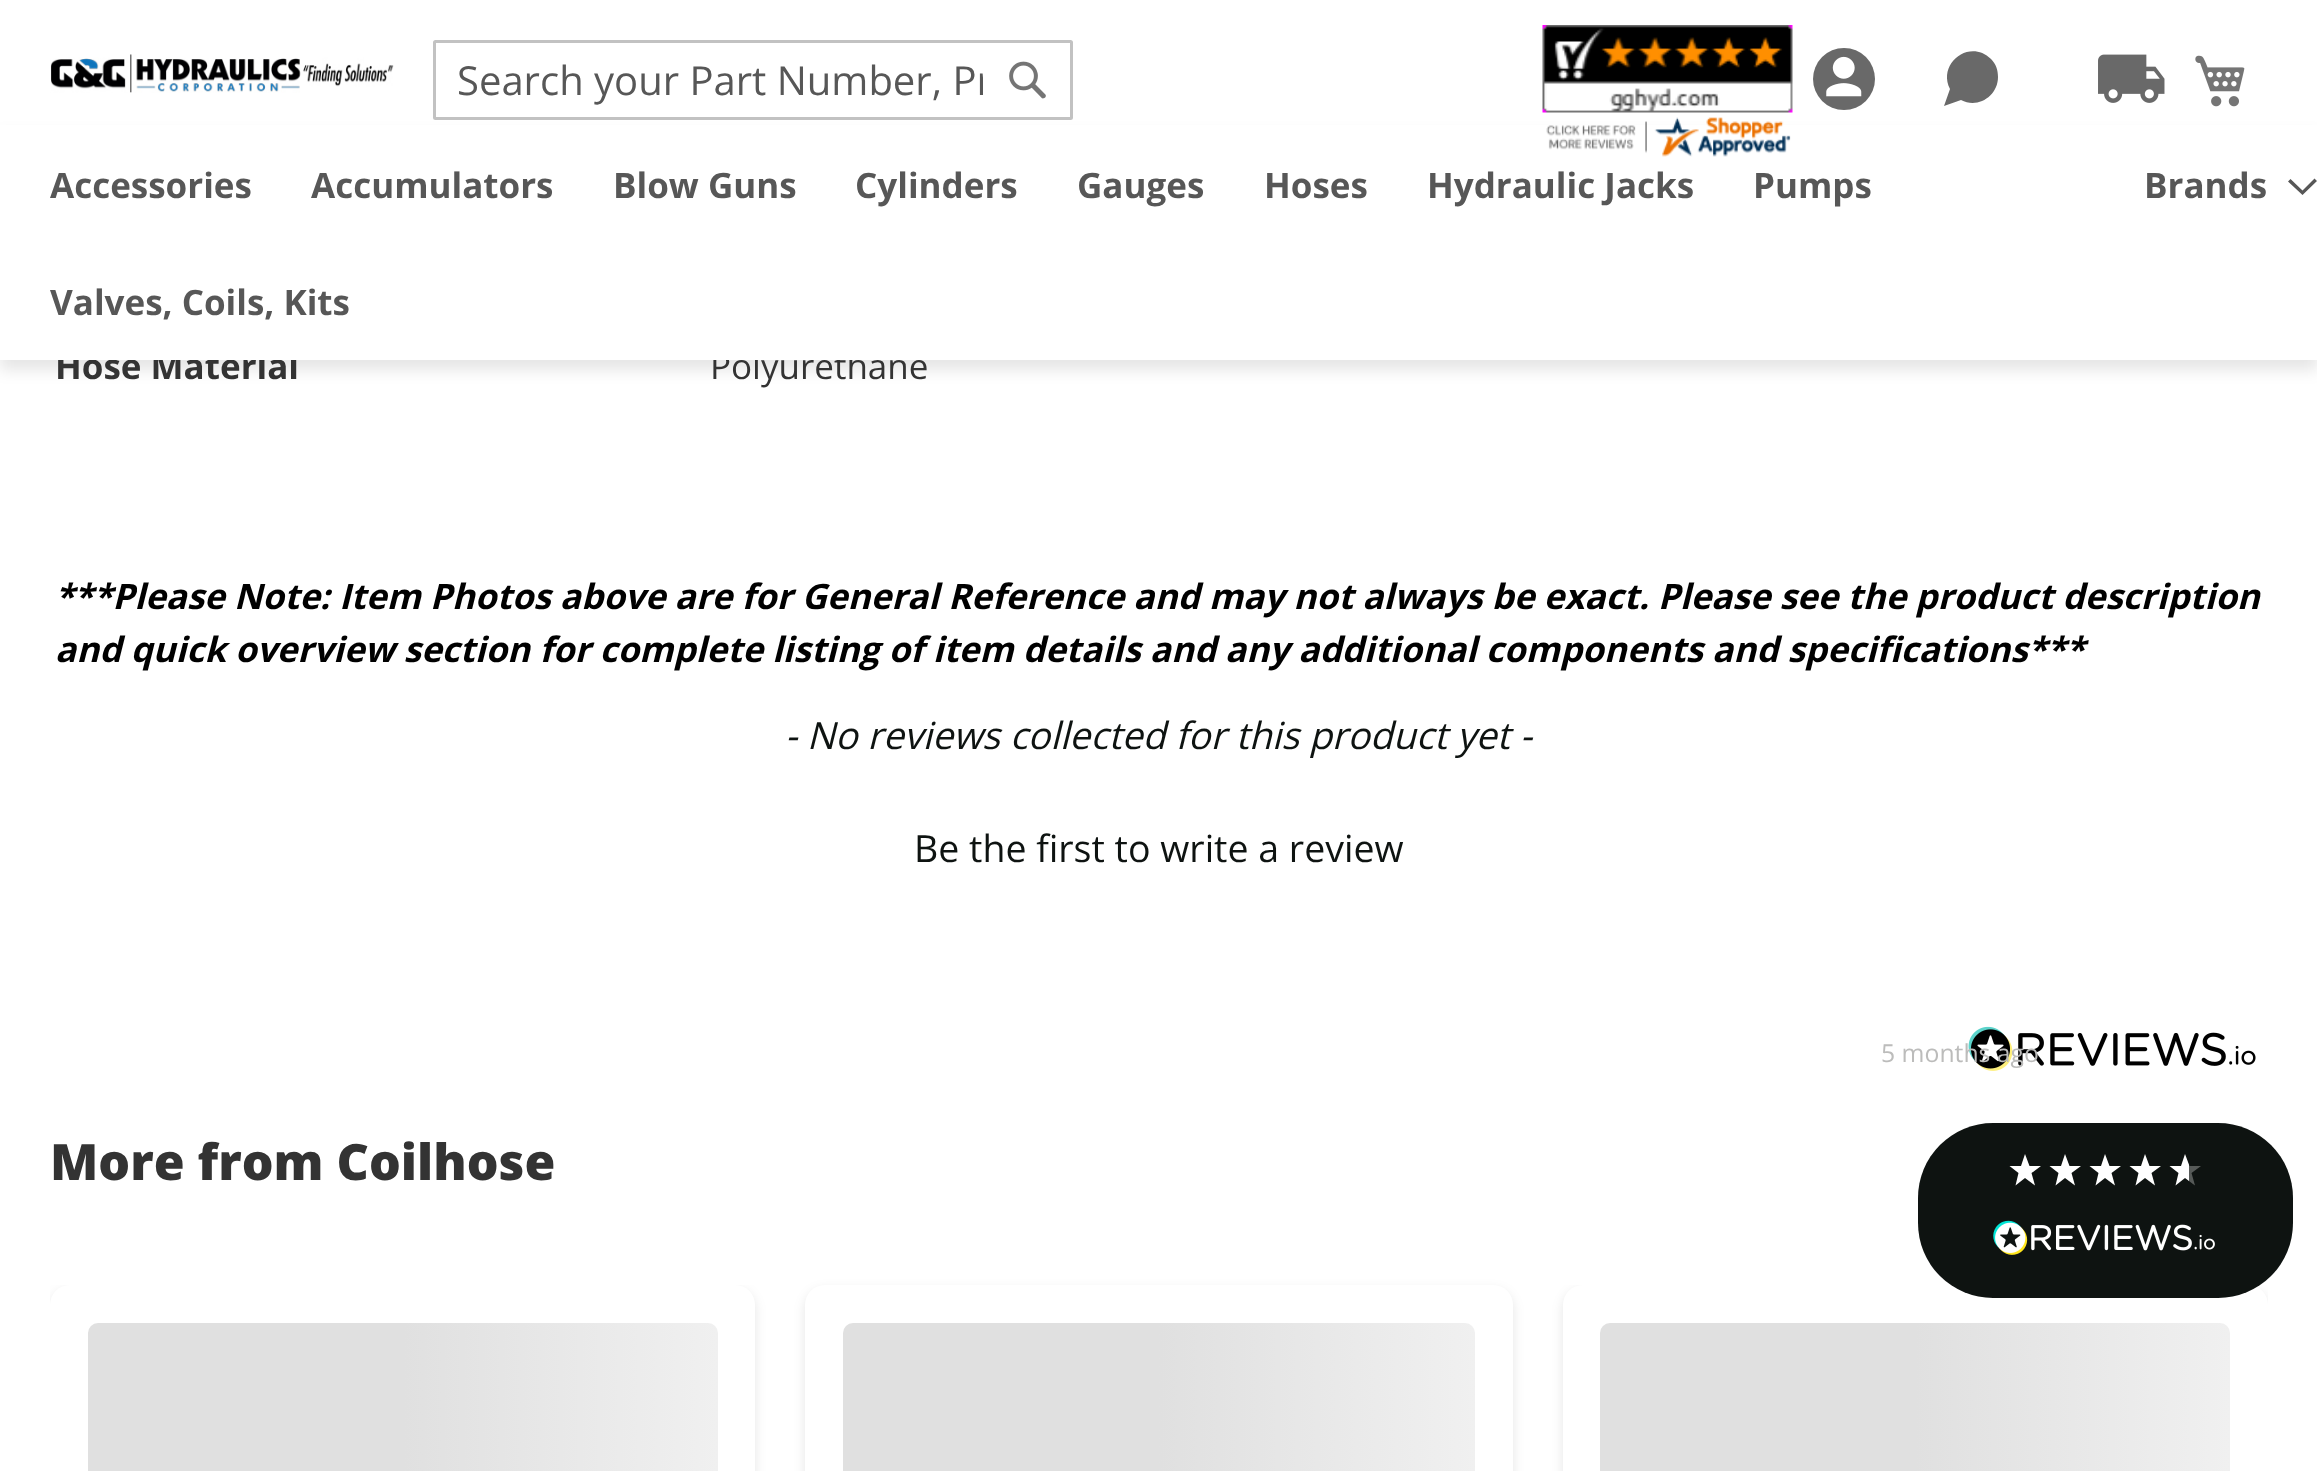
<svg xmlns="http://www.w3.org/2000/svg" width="2317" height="1471">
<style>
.a{font:40px Open Sans;fill:#575757}
.b{font:bold 35px Open Sans;fill:#333}
.c{font:35px Open Sans;fill:#333}
.d{font:bold 35px Open Sans;fill:#575757}
.e{font:italic bold 35px Open Sans;fill:#000}
.f{font:italic 37.5px Open Sans;fill:#0e1311}
.g{font:37.5px Open Sans;fill:#0e1311}
.h{font:800 50px Open Sans;fill:#333}
.i{font:24.75px Open Sans;fill:#bcbcbb}
</style>
<defs>
<clipPath id="clip1"><path d="M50 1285h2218v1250H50z"/></clipPath>
<linearGradient id="g1" gradientUnits="userSpaceOnUse" x1="88" y1="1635" x2="1348" y2="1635"><stop offset="0.25" stop-color="#e0e0e0"/><stop offset="0.5" stop-color="#f0f0f0"/><stop offset="0.75" stop-color="#e0e0e0"/></linearGradient>
<linearGradient id="g2" gradientUnits="userSpaceOnUse" x1="843" y1="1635" x2="2108" y2="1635"><stop offset="0.25" stop-color="#e0e0e0"/><stop offset="0.5" stop-color="#f0f0f0"/><stop offset="0.75" stop-color="#e0e0e0"/></linearGradient>
<linearGradient id="g3" gradientUnits="userSpaceOnUse" x1="1600" y1="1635" x2="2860" y2="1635"><stop offset="0.25" stop-color="#e0e0e0"/><stop offset="0.5" stop-color="#f0f0f0"/><stop offset="0.75" stop-color="#e0e0e0"/></linearGradient>
<linearGradient id="g4" gradientUnits="userSpaceOnUse" x1="2165" y1="1170" x2="2205" y2="1170"><stop offset="0.6" stop-color="#fff"/><stop offset="0.6" stop-color="#565a58"/></linearGradient>
<clipPath id="clip2"><path d="M458 53h525v55H458z"/></clipPath>
</defs>
<rect width="100%" height="100%" fill="#fff"/>
<image href="1.png" x="50" y="54" width="344" height="39"/>
<path fill="#0000001a" filter="blur(7.5px)" d="M0 135h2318v235H0z"/>
<rect fill="none" stroke="#c2c2c2" stroke-width="3" x="434.5" y="41.5" width="637" height="77" rx="1"/>
<image href="2.png" x="1009" y="61" width="37" height="38"/>
<image href="3.png" x="1542" y="25" width="251" height="88"/>
<circle fill="#696969" cx="1844" cy="79" r="31"/>
<image href="5.png" x="1826" y="56" width="36" height="41"/>
<path fill="#696969" d="M1998 77c0 19-20 32-37 23l-17 6l6-17c-13-26 20-51 41-30c5 5 7 11 7 18z"/>
<image href="6.png" x="2098" y="54" width="67" height="49"/>
<image href="7.png" x="2195" y="55" width="50" height="52"/>
<image href="8.png" x="1968" y="1026" width="288" height="45"/>
<g clip-path="url(#clip1)">
<rect fill="#0000001a" filter="blur(6px)" x="50" y="1290" width="705" height="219" rx="20"/>
</g>
<rect fill="#fff" x="50" y="1285" width="705" height="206" rx="20"/>
<rect fill="url(#g1)" x="88" y="1323" width="630" height="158" rx="10"/>
<rect fill="#0000001a" filter="blur(6px)" x="805" y="1290" width="708" height="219" rx="20"/>
<rect fill="#fff" x="805" y="1285" width="708" height="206" rx="20"/>
<rect fill="url(#g2)" x="843" y="1323" width="632" height="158" rx="10"/>
<g clip-path="url(#clip1)">
<rect fill="#0000001a" filter="blur(6px)" x="1563" y="1290" width="705" height="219" rx="20"/>
</g>
<rect fill="#fff" x="1563" y="1285" width="705" height="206" rx="20"/>
<rect fill="url(#g3)" x="1600" y="1323" width="630" height="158" rx="10"/>
<rect fill="#0e1311" x="1918" y="1123" width="375" height="175" rx="75"/>
<path fill="#fff" d="M2025 1154l-4 12h-11.5l9 7l-3 12.5l9.5-7.5l10 7.5l-3.5-12.5l9.5-7h-11.5z"/>
<path fill="#fff" d="M2065 1154l-4 12h-11.5l9 7l-3 12.5l9.5-7.5l10 7.5l-3.5-12.5l9.5-7h-11.5z"/>
<path fill="#fff" d="M2105 1154l-4 12h-11.5l9 7l-3 12.5l9.5-7.5l10 7.5l-3.5-12.5l9.5-7h-11.5z"/>
<path fill="#fff" d="M2145 1154l-4 12h-11.5l9 7l-3 12.5l9.5-7.5l10 7.5l-3.5-12.5l9.5-7h-11.5z"/>
<path fill="url(#g4)" d="M2185 1154l-4 12h-11.5l9 7l-3 12.5l9.5-7.5l10 7.5l-3.5-12.5l9.5-7h-11.5z"/>
<image href="9.png" x="1993" y="1220" width="222" height="35"/>
<g clip-path="url(#clip2)">
<text class="a" x="457" y="95">Search your Part Number, Pr</text>
</g>
<text class="b" x="55" y="379">Hose Material</text>
<text class="c" x="710" y="379">Polyurethane</text>
<path fill="#fff" d="M0 125h2317v235H0z"/>
<image href="4.png" x="1546" y="117" width="245" height="40"/>
<path fill="#575757" d="M2302.5 190.5l-12-11.5l-2.5 2.5l14.5 13.5l14.5-14l-2.5-2.5z"/>
<text class="d" x="2144" y="198">Brands</text>
<text class="d" x="50" y="315">Valves, Coils, Kits</text>
<text class="d" x="1753" y="198">Pumps</text>
<text class="d" x="1427" y="198">Hydraulic Jacks</text>
<text class="d" x="1264" y="198">Hoses</text>
<text class="d" x="1077" y="198">Gauges</text>
<text class="d" x="855" y="198">Cylinders</text>
<text class="d" x="613" y="198">Blow Guns</text>
<text class="d" x="311" y="198">Accumulators</text>
<text class="d" x="50" y="198">Accessories</text>
<text class="e" x="55" y="609">***Please Note: Item Photos above are for General Reference and may not always be exact. Please see the product description</text>
<text class="e" x="55" y="662">and quick overview section for complete listing of item details and any additional components and specifications***</text>
<text class="f" x="785" y="749">- No reviews collected for this product yet -</text>
<text class="g" x="914" y="862">Be the first to write a review</text>
<text class="h" x="50" y="1180">More from Coilhose</text>
<text class="i" x="1881" y="1062">5 months ago</text>
</svg>
